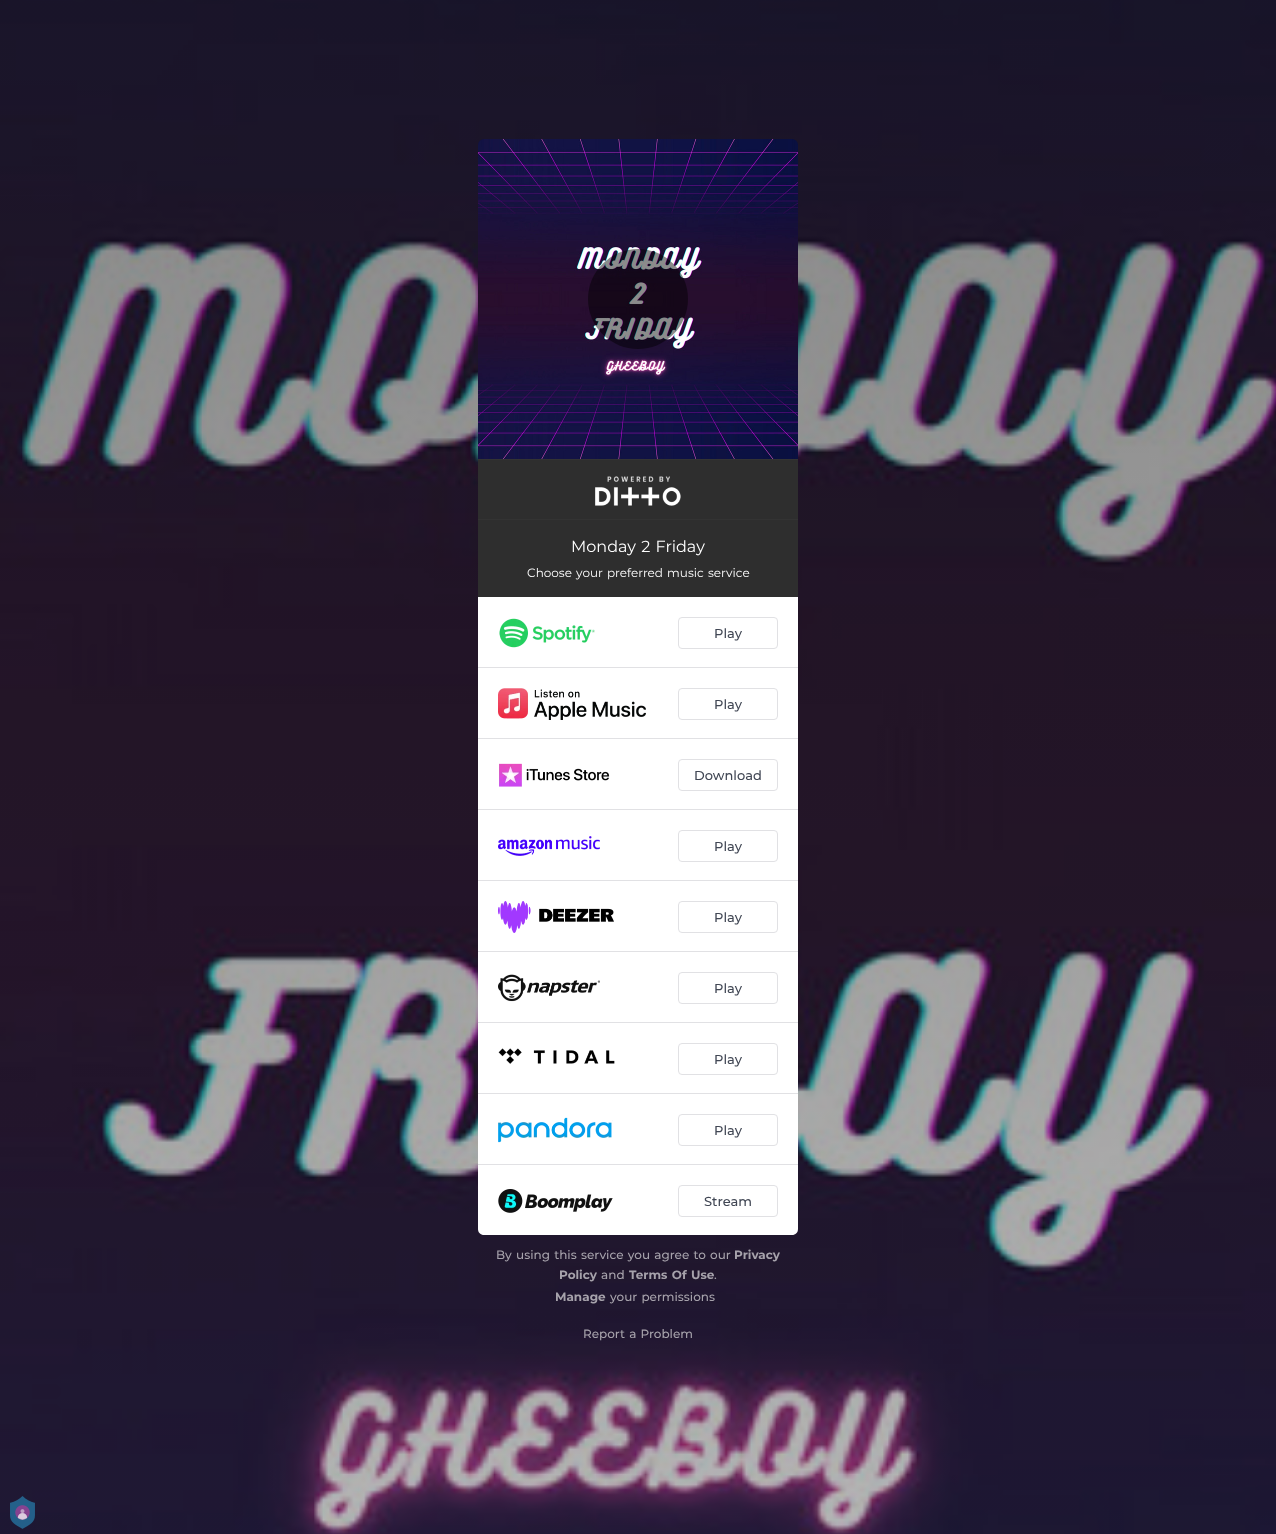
<svg xmlns="http://www.w3.org/2000/svg" width="1276" height="1534">
<style>
.a{font:16px Montserrat;fill:#fff}
.b{font:12px Montserrat;fill:#fff}
.c{font:500 13px Montserrat;fill:#414754}
.d{font:500 12px Montserrat;fill:#a6a2ab}
.e{font:bold 12px Montserrat;fill:#a6a2ab}
</style>
<rect width="100%" height="100%" fill="#fff"/>
<image href="1.png" x="0" y="0" width="1276" height="1534"/>
<image href="2.png" x="478" y="139" width="320" height="320"/>
<circle fill="#00000073" cx="638" cy="299" r="50"/>
<path fill="#2e2e2e" d="M478 460h320v59H478z"/>
<path fill="#333" d="M478 459h320v1H478z"/>
<path fill="#333" d="M478 519h320v1H478z"/>
<image href="3.png" x="595" y="476" width="86" height="30"/>
<path fill="#2e2e2e" d="M478 520h320v77H478z"/>
<path fill="#fff" d="M478 597h320v632c0 3.5-2.5 6-6 6h-308c-3.5 0-6-2.5-6-6z"/>
<path fill="#e1e1e4" d="M478 667h320v1H478z"/>
<image href="4.png" x="499" y="618" width="96" height="30"/>
<rect fill="none" stroke="#e1e1e4" x="678.5" y="617.5" width="99" height="31" rx="3.5"/>
<path fill="#e1e1e4" d="M478 738h320v1H478z"/>
<image href="5.png" x="498" y="688" width="148" height="32"/>
<rect fill="none" stroke="#e1e1e4" x="678.5" y="688.5" width="99" height="31" rx="3.5"/>
<path fill="#e1e1e4" d="M478 809h320v1H478z"/>
<image href="6.png" x="499" y="763" width="111" height="24"/>
<rect fill="none" stroke="#e1e1e4" x="678.5" y="759.5" width="99" height="31" rx="3.5"/>
<path fill="#e1e1e4" d="M478 880h320v1H478z"/>
<image href="7.png" x="498" y="836" width="102" height="20"/>
<rect fill="none" stroke="#e1e1e4" x="678.5" y="830.5" width="99" height="31" rx="3.5"/>
<path fill="#e1e1e4" d="M478 951h320v1H478z"/>
<image href="8.png" x="498" y="901" width="116" height="32"/>
<rect fill="none" stroke="#e1e1e4" x="678.5" y="901.5" width="99" height="31" rx="3.5"/>
<path fill="#e1e1e4" d="M478 1022h320v1H478z"/>
<image href="9.png" x="498" y="974" width="102" height="28"/>
<rect fill="none" stroke="#e1e1e4" x="678.5" y="972.5" width="99" height="31" rx="3.5"/>
<path fill="#e1e1e4" d="M478 1093h320v1H478z"/>
<image href="10.png" x="498" y="1048" width="117" height="16"/>
<rect fill="none" stroke="#e1e1e4" x="678.5" y="1043.5" width="99" height="31" rx="3.5"/>
<path fill="#e1e1e4" d="M478 1164h320v1H478z"/>
<image href="11.png" x="498" y="1117" width="115" height="26"/>
<rect fill="none" stroke="#e1e1e4" x="678.5" y="1114.5" width="99" height="31" rx="3.5"/>
<image href="12.png" x="498" y="1189" width="115" height="24"/>
<rect fill="none" stroke="#e1e1e4" x="678.5" y="1185.5" width="99" height="31" rx="3.5"/>
<image href="13.png" x="10" y="1496" width="25" height="33"/>
<text class="a" x="571" y="552" word-spacing="1">Monday 2 Friday</text>
<text class="b" x="527" y="577" word-spacing="1">Choose your preferred music service</text>
<text class="c" x="714" y="638">Play</text>
<text class="c" x="714" y="709">Play</text>
<text class="c" x="694" y="780">Download</text>
<text class="c" x="714" y="851">Play</text>
<text class="c" x="714" y="922">Play</text>
<text class="c" x="714" y="993">Play</text>
<text class="c" x="714" y="1064">Play</text>
<text class="c" x="714" y="1135">Play</text>
<text class="c" x="704" y="1206">Stream</text>
<text class="d" x="496" y="1259" word-spacing="1">By using this service you agree to our</text>
<text class="e" x="734" y="1259">Privacy</text>
<text class="e" x="559" y="1279">Policy</text>
<text class="d" x="601" y="1279">and</text>
<text class="e" x="629" y="1279" word-spacing="1">Terms Of Use</text>
<text class="d" x="714" y="1279">.</text>
<text class="e" x="555" y="1301">Manage</text>
<text class="d" x="610" y="1301" word-spacing="1">your permissions</text>
<text class="d" x="583" y="1338" word-spacing="1">Report a Problem</text>
</svg>
